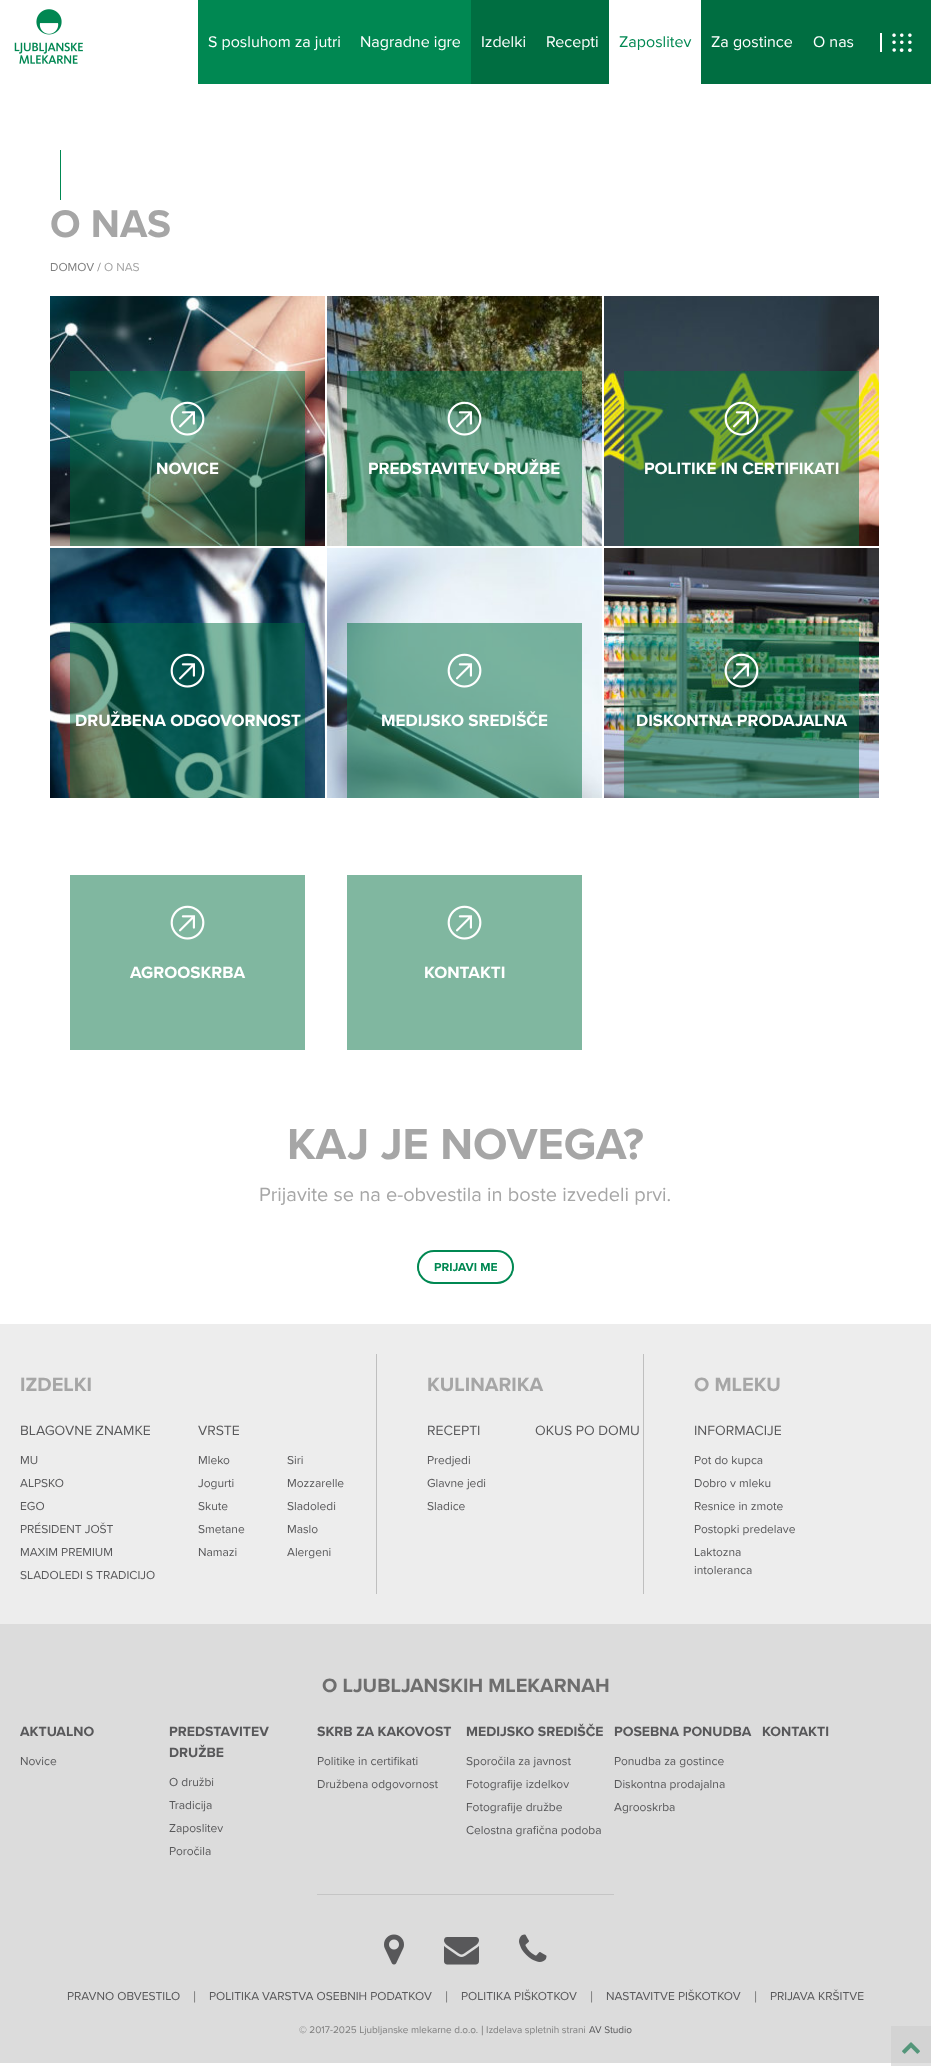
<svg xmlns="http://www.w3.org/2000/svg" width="931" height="2066">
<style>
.a{font:16px Proxima Nova;fill:#fff}
.b{font:16px Proxima Nova;fill:#008852}
.c{font:bold 40px Proxima Nova;fill:#a6a6a6}
.d{font:12px Proxima Nova;fill:#7f7f7f}
.e{font:12px Proxima Nova;fill:#a6a6a6}
.f{font:bold 17px Proxima Nova;fill:#fff}
.g{font:bold 45px Proxima Nova;fill:#a6a6a6}
.h{font:20px Proxima Nova;fill:#a6a6a6}
.i{font:bold 12px Proxima Nova;fill:#008852}
.j{font:bold 20px Proxima Nova;fill:#a6a6a6}
.k{font:14px Proxima Nova;fill:#58585a}
.l{font:12px Proxima Nova;fill:#58585a}
.m{font:bold 20px Proxima Nova;fill:#6e6e6e}
.n{font:bold 14px Proxima Nova;fill:#58585a}
.o{font:12px Liberation Sans;fill:#7f7f7f}
.p{font:10px Proxima Nova;fill:#7f7f7f}
.q{font:10px Liberation Sans;fill:#7f7f7f}
.r{font:10px Proxima Nova;fill:#58585a}
</style>
<rect width="100%" height="100%" fill="#fff"/>
<path fill="#e1e1e1" d="M891 2063h40v3H891z"/>
<image href="1.png" x="14" y="9" width="69" height="55"/>
<path fill="#008852" d="M198 0h273v84H198z"/>
<path fill="#006e41" d="M471 0h138v84H471z"/>
<path fill="#006e41" d="M701 0h163v84H701z"/>
<path fill="#006e41" d="M864 0h67v84H864z"/>
<path fill="#fff" d="M880 33h2v19H880z"/>
<image href="2.png" x="892" y="33" width="20" height="19"/>
<path fill="#008852" d="M60 150h1v50H60z"/>
<image href="3.png" x="50" y="296" width="275" height="250"/>
<path fill="#006e4180" d="M70 371h235v175H70z"/>
<image href="4.png" x="170" y="401" width="35" height="35"/>
<image href="5.png" x="327" y="296" width="275" height="250"/>
<path fill="#006e4180" d="M347 371h235v175H347z"/>
<image href="6.png" x="447" y="401" width="35" height="35"/>
<image href="7.png" x="604" y="296" width="275" height="250"/>
<path fill="#006e4180" d="M624 371h235v175H624z"/>
<image href="8.png" x="724" y="401" width="35" height="35"/>
<image href="9.png" x="50" y="548" width="275" height="250"/>
<path fill="#006e4180" d="M70 623h235v175H70z"/>
<image href="10.png" x="170" y="653" width="35" height="35"/>
<image href="11.png" x="327" y="548" width="275" height="250"/>
<path fill="#006e4180" d="M347 623h235v175H347z"/>
<image href="12.png" x="447" y="653" width="35" height="35"/>
<image href="13.png" x="604" y="548" width="275" height="250"/>
<path fill="#006e4180" d="M624 623h235v175H624z"/>
<image href="14.png" x="724" y="653" width="35" height="35"/>
<path fill="#80b7a0" d="M70 875h235v175H70z"/>
<image href="15.png" x="170" y="905" width="35" height="35"/>
<path fill="#80b7a0" d="M347 875h235v175H347z"/>
<image href="15.png" x="447" y="905" width="35" height="35"/>
<rect fill="none" stroke="#008852" stroke-width="2" x="418" y="1251" width="95" height="32" rx="16"/>
<path fill="#ededed" d="M0 1324h931v300H0z"/>
<path fill="#bfbfbf" d="M643 1354h1v240H643z"/>
<path fill="#bfbfbf" d="M376 1354h1v240H376z"/>
<path fill="#dcdcdc" d="M0 1624h931v439H0z"/>
<path fill="#d3d3d3" d="M891 2026h40v37H891z"/>
<path fill="#c5c5c5" d="M317 1894h297v1H317z"/>
<image href="16.png" x="384" y="1934" width="20" height="31"/>
<image href="17.png" x="444" y="1937" width="35" height="28"/>
<image href="18.png" x="519" y="1934" width="28" height="28"/>
<image href="19.png" x="902" y="2042" width="18" height="12"/>
<text class="a" x="208" y="47">S posluhom za jutri</text>
<text class="a" x="360" y="47">Nagradne igre</text>
<text class="a" x="481" y="47">Izdelki</text>
<text class="a" x="546" y="47">Recepti</text>
<text class="b" x="619" y="47">Zaposlitev</text>
<text class="a" x="711" y="47">Za gostince</text>
<text class="a" x="813" y="47">O nas</text>
<text class="c" x="50" y="237">O NAS</text>
<text class="d" x="50" y="271">DOMOV /</text>
<text class="e" x="104" y="271">O NAS</text>
<text class="f" x="156" y="474">NOVICE</text>
<text class="f" x="368" y="474">PREDSTAVITEV DRUŽBE</text>
<text class="f" x="644" y="474">POLITIKE IN CERTIFIKATI</text>
<text class="f" x="75" y="726">DRUŽBENA ODGOVORNOST</text>
<text class="f" x="381" y="726">MEDIJSKO SREDIŠČE</text>
<text class="f" x="636" y="726">DISKONTNA PRODAJALNA</text>
<text class="f" x="130" y="978">AGROOSKRBA</text>
<text class="f" x="424" y="978">KONTAKTI</text>
<text class="g" x="287" y="1159">KAJ JE NOVEGA?</text>
<text class="h" x="259" y="1201">Prijavite se na e-obvestila in boste izvedeli prvi.</text>
<text class="i" x="434" y="1271">PRIJAVI ME</text>
<text class="j" x="20" y="1391">IZDELKI</text>
<text class="k" x="20" y="1435">BLAGOVNE ZNAMKE</text>
<text class="l" x="20" y="1464">MU</text>
<text class="l" x="20" y="1487">ALPSKO</text>
<text class="l" x="20" y="1510">EGO</text>
<text class="l" x="20" y="1533">PRÉSIDENT JOŠT</text>
<text class="l" x="20" y="1556">MAXIM PREMIUM</text>
<text class="l" x="20" y="1579">SLADOLEDI S TRADICIJO</text>
<text class="k" x="198" y="1435">VRSTE</text>
<text class="l" x="198" y="1464">Mleko</text>
<text class="l" x="287" y="1464">Siri</text>
<text class="l" x="198" y="1487">Jogurti</text>
<text class="l" x="287" y="1487">Mozzarelle</text>
<text class="l" x="198" y="1510">Skute</text>
<text class="l" x="287" y="1510">Sladoledi</text>
<text class="l" x="198" y="1533">Smetane</text>
<text class="l" x="287" y="1533">Maslo</text>
<text class="l" x="198" y="1556">Namazi</text>
<text class="l" x="287" y="1556">Alergeni</text>
<text class="j" x="427" y="1391">KULINARIKA</text>
<text class="k" x="427" y="1435">RECEPTI</text>
<text class="l" x="427" y="1464">Predjedi</text>
<text class="l" x="427" y="1487">Glavne jedi</text>
<text class="l" x="427" y="1510">Sladice</text>
<text class="k" x="535" y="1435">OKUS PO DOMU</text>
<text class="j" x="694" y="1391">O MLEKU</text>
<text class="k" x="694" y="1435">INFORMACIJE</text>
<text class="l" x="694" y="1464">Pot do kupca</text>
<text class="l" x="694" y="1487">Dobro v mleku</text>
<text class="l" x="694" y="1510">Resnice in zmote</text>
<text class="l" x="694" y="1533">Postopki predelave</text>
<text class="l" x="694" y="1556">Laktozna</text>
<text class="l" x="694" y="1574">intoleranca</text>
<text class="m" x="322" y="1692">O LJUBLJANSKIH MLEKARNAH</text>
<text class="n" x="20" y="1736">AKTUALNO</text>
<text class="l" x="20" y="1765">Novice</text>
<text class="n" x="169" y="1736">PREDSTAVITEV</text>
<text class="n" x="169" y="1757">DRUŽBE</text>
<text class="l" x="169" y="1786">O družbi</text>
<text class="l" x="169" y="1809">Tradicija</text>
<text class="l" x="169" y="1832">Zaposlitev</text>
<text class="l" x="169" y="1855">Poročila</text>
<text class="n" x="317" y="1736">SKRB ZA KAKOVOST</text>
<text class="l" x="317" y="1765">Politike in certifikati</text>
<text class="l" x="317" y="1788">Družbena odgovornost</text>
<text class="n" x="466" y="1736">MEDIJSKO SREDIŠČE</text>
<text class="l" x="466" y="1765">Sporočila za javnost</text>
<text class="l" x="466" y="1788">Fotografije izdelkov</text>
<text class="l" x="466" y="1811">Fotografije družbe</text>
<text class="l" x="466" y="1834">Celostna grafična podoba</text>
<text class="n" x="614" y="1736">POSEBNA PONUDBA</text>
<text class="l" x="614" y="1765">Ponudba za gostince</text>
<text class="l" x="614" y="1788">Diskontna prodajalna</text>
<text class="l" x="614" y="1811">Agrooskrba</text>
<text class="n" x="762" y="1736">KONTAKTI</text>
<text class="l" x="67" y="2000">PRAVNO OBVESTILO</text>
<text class="o" x="193" y="2000">|</text>
<text class="l" x="209" y="2000">POLITIKA VARSTVA OSEBNIH PODATKOV</text>
<text class="o" x="445" y="2000">|</text>
<text class="l" x="461" y="2000">POLITIKA PIŠKOTKOV</text>
<text class="o" x="590" y="2000">|</text>
<text class="l" x="606" y="2000">NASTAVITVE PIŠKOTKOV</text>
<text class="o" x="754" y="2000">|</text>
<text class="l" x="770" y="2000">PRIJAVA KRŠITVE</text>
<text class="p" x="299" y="2033">© 2017-2025 Ljubljanske mlekarne d.o.o.</text>
<text class="q" x="481" y="2033">|</text>
<text class="p" x="486" y="2033">Izdelava spletnih strani</text>
<text class="r" x="589" y="2033">AV Studio</text>
</svg>
